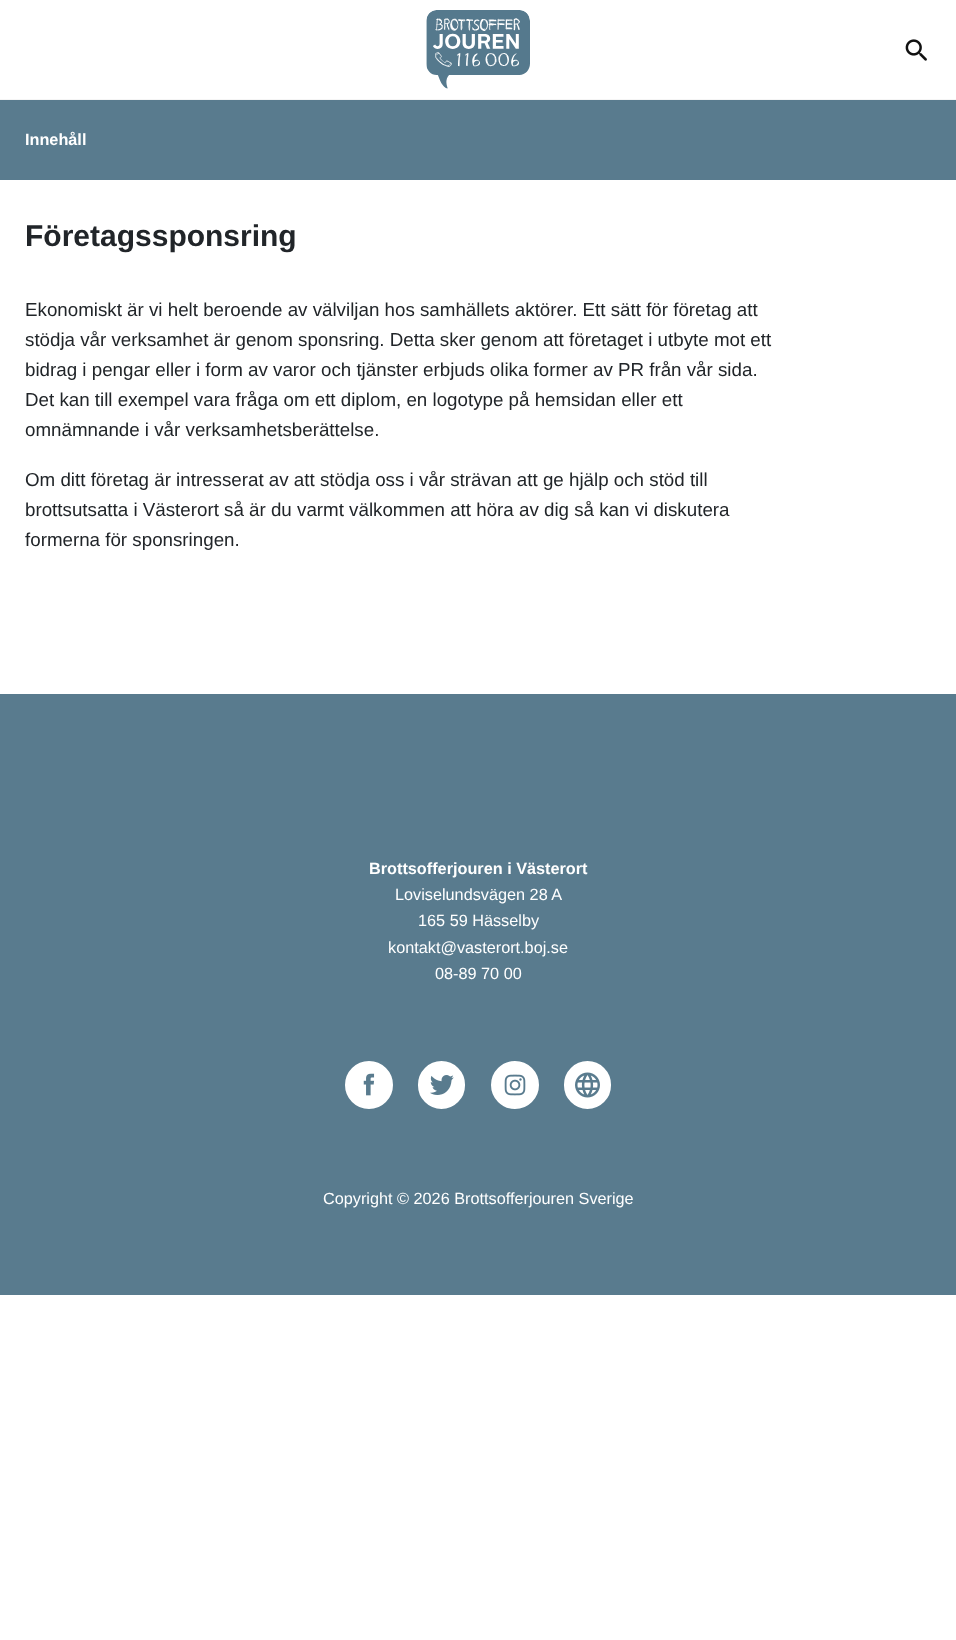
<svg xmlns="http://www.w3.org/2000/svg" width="956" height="1640">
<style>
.a{font:bold 16.25px Liberation Sans;fill:#fff}
.b{font:bold 30px Liberation Sans;fill:#212529}
.c{font:18.75px Liberation Sans;fill:#212529}
.d{font:16.25px Liberation Sans;fill:#fff}
</style>
<rect width="100%" height="100%" fill="#fff"/>
<path fill="#f5f5f5" d="M0 99h956v1H0z"/>
<image href="1.png" x="426" y="10" width="104" height="79"/>
<image href="2.png" x="905" y="39" width="22" height="22"/>
<path fill="#597b8e" d="M0 100h956v80H0z"/>
<path fill="#597b8e" d="M0 694h956v601H0z"/>
<circle fill="#fff" stroke="#fff" stroke-width="3" cx="369" cy="1085" r="22.5"/>
<image href="3.png" x="363" y="1073" width="12" height="23"/>
<rect fill="#fff" stroke="#fff" stroke-width="3" x="419.5" y="1062.5" width="44" height="45" rx="22"/>
<image href="4.png" x="430" y="1075" width="24" height="20"/>
<circle fill="#fff" stroke="#fff" stroke-width="3" cx="515" cy="1085" r="22.5"/>
<image href="5.png" x="504" y="1074" width="22" height="22"/>
<rect fill="#fff" stroke="#fff" stroke-width="3" x="565.5" y="1062.5" width="44" height="45" rx="22"/>
<image href="6.png" x="575" y="1072" width="25" height="26"/>
<text class="a" x="25" y="145">Innehåll</text>
<text class="b" x="25" y="246">Företagssponsring</text>
<text class="c" x="25" y="316">Ekonomiskt är vi helt beroende av välviljan hos samhällets aktörer. Ett sätt för företag att</text>
<text class="c" x="25" y="346">stödja vår verksamhet är genom sponsring. Detta sker genom att företaget i utbyte mot ett</text>
<text class="c" x="25" y="376">bidrag i pengar eller i form av varor och tjänster erbjuds olika former av PR från vår sida.</text>
<text class="c" x="25" y="406">Det kan till exempel vara fråga om ett diplom, en logotype på hemsidan eller ett</text>
<text class="c" x="25" y="436">omnämnande i vår verksamhetsberättelse.</text>
<text class="c" x="25" y="486">Om ditt företag är intresserat av att stödja oss i vår strävan att ge hjälp och stöd till</text>
<text class="c" x="25" y="516">brottsutsatta i Västerort så är du varmt välkommen att höra av dig så kan vi diskutera</text>
<text class="c" x="25" y="546">formerna för sponsringen.</text>
<text class="a" x="369" y="874">Brottsofferjouren i Västerort</text>
<text class="d" x="395" y="900">Loviselundsvägen 28 A</text>
<text class="d" x="418" y="926">165 59 Hässelby</text>
<text class="d" x="388" y="953">kontakt@vasterort.boj.se</text>
<text class="d" x="435" y="979">08-89 70 00</text>
<text class="d" x="323" y="1204">Copyright © 2026 Brottsofferjouren Sverige</text>
</svg>
